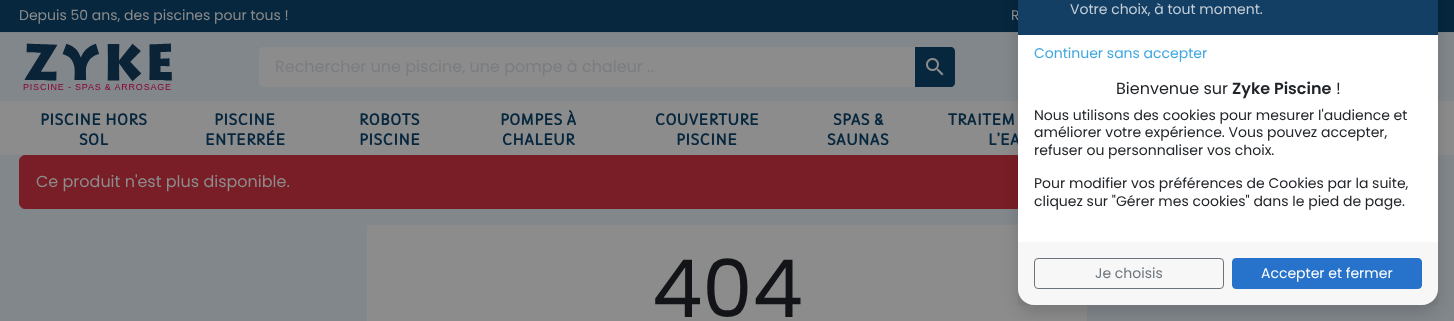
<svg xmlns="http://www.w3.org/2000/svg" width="1454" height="321">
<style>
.a{font:14px Poppins;fill:#8c8c8c}
.b{font:16px Poppins;fill:#7a7c7f}
.c{font:16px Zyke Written;fill:#06273e}
.d{font:14px Poppins;fill:#c4cfd8}
.e{font:14px Poppins;fill:#40a7e0}
.f{font:16px Poppins;fill:#212529}
.g{font:600 16px Poppins;fill:#212529}
.h{font:14px Poppins;fill:#212529}
.i{font:14px Poppins;fill:#6c757d}
.j{font:14px Poppins;fill:#fff}
.k{font:16px Poppins;fill:#8c8c8c}
.l{font:80px Poppins;fill:#121417}
</style>
<rect width="100%" height="100%" fill="#82878c"/>
<path fill="#06273e" d="M0 0h1454v32H0z"/>
<path fill="#808283" d="M0 32h1454v1H0z"/>
<image href="1.png" x="23" y="43" width="149" height="47"/>
<path fill="#8c8c8c" d="M263 47h653v40h-653c-2 0-4-2-4-4v-32c0-2 2-4 4-4z"/>
<path fill="#06273e" d="M915 47h36c2 0 4 2 4 4v32c0 2-2 4-4 4h-36z"/>
<image href="2.png" x="926" y="58" width="18" height="18"/>
<path fill="#8c8c8c" d="M0 101h1454v54H0z"/>
<rect fill="#791d26" stroke="#791d26" x="19.5" y="155.5" width="1415" height="53" rx="5.5"/>
<path fill="#8c8c8c" d="M367 225h720v96H367z"/>
<rect fill="#00000026" filter="blur(8px)" x="1018" y="-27" width="420" height="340" rx="16"/>
<text class="a" x="19" y="20">Depuis 50 ans, des piscines pour tous !</text>
<text class="a" x="1011" y="20">R</text>
<text class="b" x="275" y="72">Rechercher une piscine, une pompe à chaleur ..</text>
<text class="c" x="40" y="125">PISCINE HORS</text>
<text class="c" x="79" y="145">SOL</text>
<text class="c" x="214" y="125">PISCINE</text>
<text class="c" x="205" y="145">ENTERRÉE</text>
<text class="c" x="359" y="125">ROBOTS</text>
<text class="c" x="359" y="145">PISCINE</text>
<text class="c" x="500" y="125">POMPES À</text>
<text class="c" x="502" y="145">CHALEUR</text>
<text class="c" x="655" y="125">COUVERTURE</text>
<text class="c" x="676" y="145">PISCINE</text>
<text class="c" x="833" y="125">SPAS &amp;</text>
<text class="c" x="827" y="145">SAUNAS</text>
<text class="c" x="948" y="125">TRAITEM</text>
<text class="c" x="988" y="145">L'EA</text>
<rect fill="#fff" x="1018" y="-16" width="420" height="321" rx="16"/>
<path fill="#143f64" d="M1018 0h420v35H1018z"/>
<text class="d" x="1070" y="14">Votre choix, à tout moment.</text>
<text class="e" x="1034" y="58">Continuer sans accepter</text>
<text class="f" x="1116" y="94">Bienvenue sur</text>
<text class="g" x="1232" y="94">Zyke Piscine</text>
<text class="f" x="1336" y="94">!</text>
<text class="h" x="1034" y="120">Nous utilisons des cookies pour mesurer l'audience et</text>
<text class="h" x="1034" y="137">améliorer votre expérience. Vous pouvez accepter,</text>
<text class="h" x="1034" y="155">refuser ou personnaliser vos choix.</text>
<text class="h" x="1034" y="188">Pour modifier vos préférences de Cookies par la suite,</text>
<text class="h" x="1034" y="206">cliquez sur "Gérer mes cookies" dans le pied de page.</text>
<path fill="#00000008" d="M1018 242h420v63H1018z"/>
<rect fill="none" stroke="#6c757d" x="1034.5" y="258.5" width="189" height="30" rx="3.5"/>
<text class="i" x="1095" y="278">Je choisis</text>
<rect fill="#2772ca" stroke="#2772ca" x="1232.5" y="258.5" width="189" height="30" rx="3.5"/>
<text class="j" x="1261" y="278">Accepter et fermer</text>
<text class="k" x="36" y="187">Ce produit n'est plus disponible.</text>
<text class="l" x="652" y="317">404</text>
</svg>
